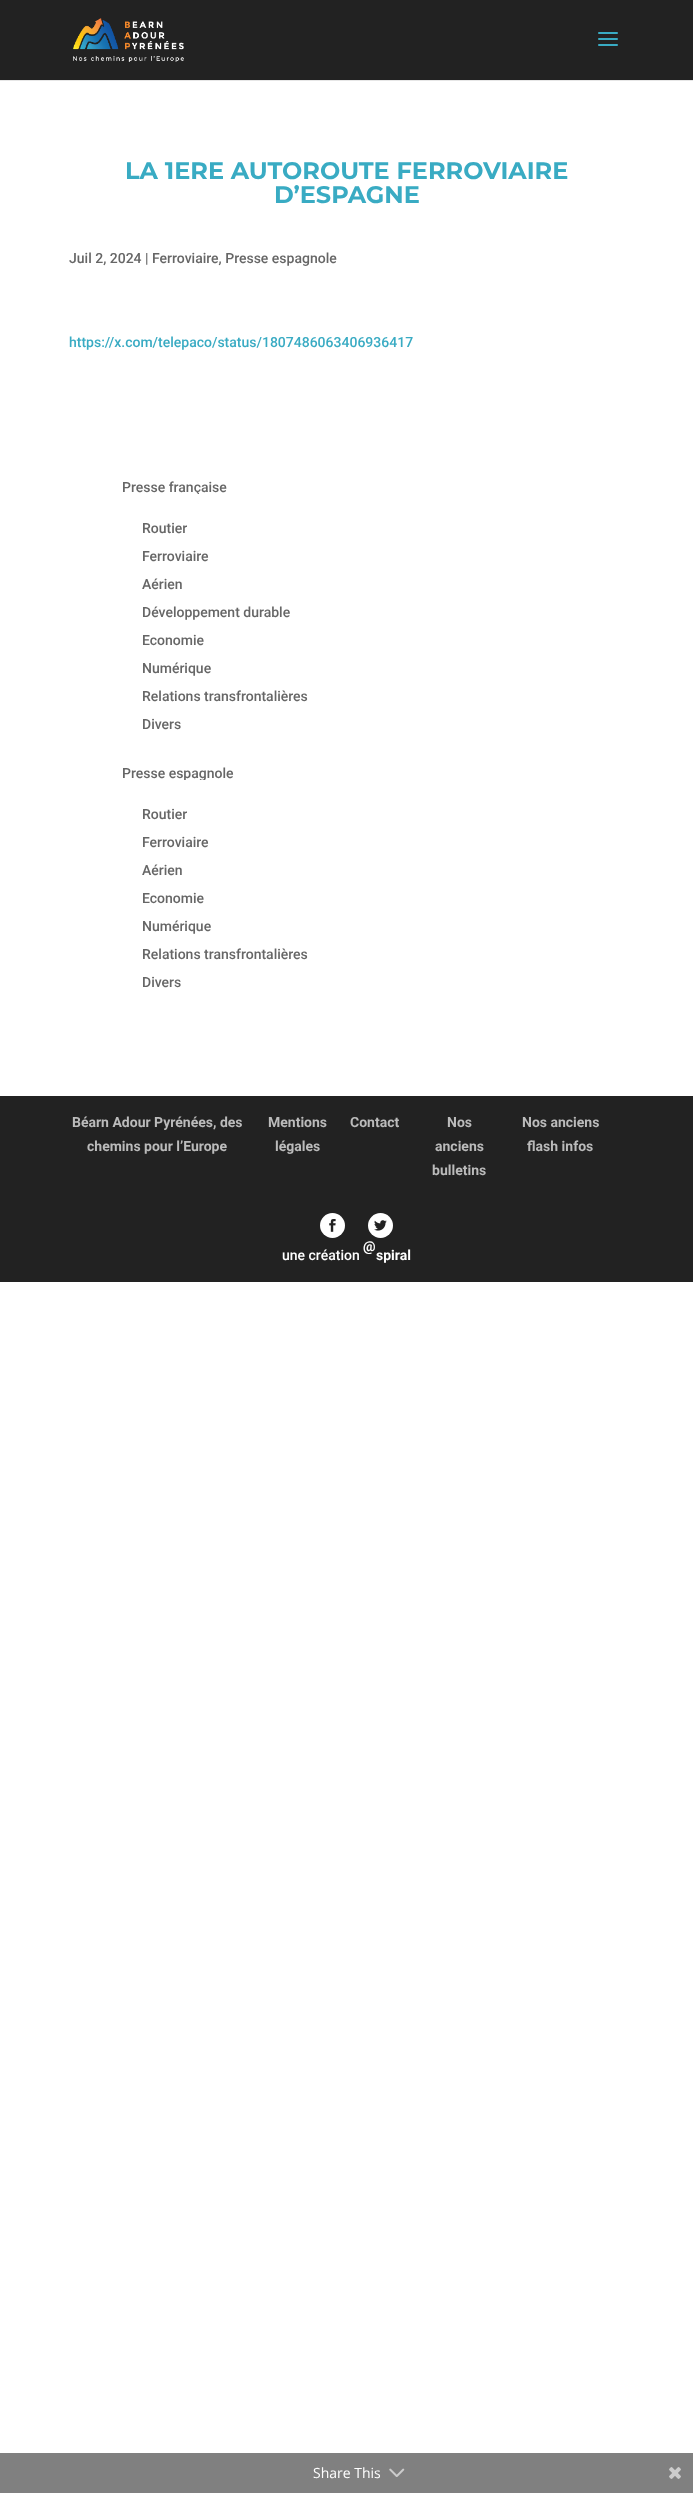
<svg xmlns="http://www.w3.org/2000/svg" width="693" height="2493">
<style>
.a{font:bold 24px Montserrat;fill:#39abc3}
.b{font:500 14px Roboto;fill:#666}
.c{font:500 14px Roboto;fill:#39abc3}
.d{font:bold 14px Roboto;fill:#bbb}
.e{font:500 14px Roboto;fill:#fff}
.f{font:bold 14px Roboto;fill:#fff}
.g{font:14px Open Sans;fill:#fff}
</style>
<rect width="100%" height="100%" fill="#fff"/>
<path fill="#e6e6e6" d="M0 80h693v1H0z"/>
<path fill="#222" d="M0 0h693v80H0z"/>
<image href="1.png" x="73" y="18" width="111" height="44"/>
<image href="2.png" x="598" y="32" width="20" height="14"/>
<path fill="#222" d="M0 1096h693v186H0z"/>
<circle fill="#fff" cx="332.5" cy="1225.5" r="12.5"/>
<image href="3.png" x="329" y="1219" width="7" height="13"/>
<circle fill="#fff" cx="380.5" cy="1225.5" r="12.5"/>
<image href="4.png" x="374" y="1220" width="13" height="11"/>
<path fill="#808080" d="M0 2453h693v40H0z"/>
<image href="5.png" x="389" y="2468" width="16" height="9"/>
<image href="6.png" x="669" y="2467" width="12" height="12"/>
<text class="a" x="125" y="179">LA 1ERE AUTOROUTE FERROVIAIRE</text>
<text class="a" x="274" y="203">D’ESPAGNE</text>
<text class="b" x="69" y="263">Juil 2, 2024 | Ferroviaire, Presse espagnole</text>
<text class="c" x="69" y="347">https://x.com/telepaco/status/1807486063406936417</text>
<text class="b" x="122" y="492">Presse française</text>
<path fill="#fff" d="M196 494h3v2H196z"/>
<text class="b" x="142" y="533">Routier</text>
<text class="b" x="142" y="561">Ferroviaire</text>
<text class="b" x="142" y="589">Aérien</text>
<text class="b" x="142" y="617">Développement durable</text>
<text class="b" x="142" y="645">Economie</text>
<text class="b" x="142" y="673">Numérique</text>
<text class="b" x="142" y="701">Relations transfrontalières</text>
<text class="b" x="142" y="729">Divers</text>
<text class="b" x="122" y="778">Presse espagnole</text>
<path fill="#fff" d="M183 780h22v1H183z"/>
<text class="b" x="142" y="819">Routier</text>
<text class="b" x="142" y="847">Ferroviaire</text>
<text class="b" x="142" y="875">Aérien</text>
<text class="b" x="142" y="903">Economie</text>
<text class="b" x="142" y="931">Numérique</text>
<text class="b" x="142" y="959">Relations transfrontalières</text>
<text class="b" x="142" y="987">Divers</text>
<text class="d" x="72" y="1127">Béarn Adour Pyrénées, des</text>
<text class="d" x="87" y="1151">chemins pour l’Europe</text>
<text class="d" x="268" y="1127">Mentions</text>
<text class="d" x="275" y="1151">légales</text>
<text class="d" x="350" y="1127">Contact</text>
<text class="d" x="447" y="1127">Nos</text>
<text class="d" x="435" y="1151">anciens</text>
<text class="d" x="432" y="1175">bulletins</text>
<text class="d" x="522" y="1127">Nos anciens</text>
<text class="d" x="527" y="1151">flash infos</text>
<text class="e" x="282" y="1260">une création</text>
<text class="f" x="363" y="1251">@</text>
<text class="f" x="376" y="1260">spiral</text>
<text class="g" x="313" y="2478">Share This</text>
</svg>
